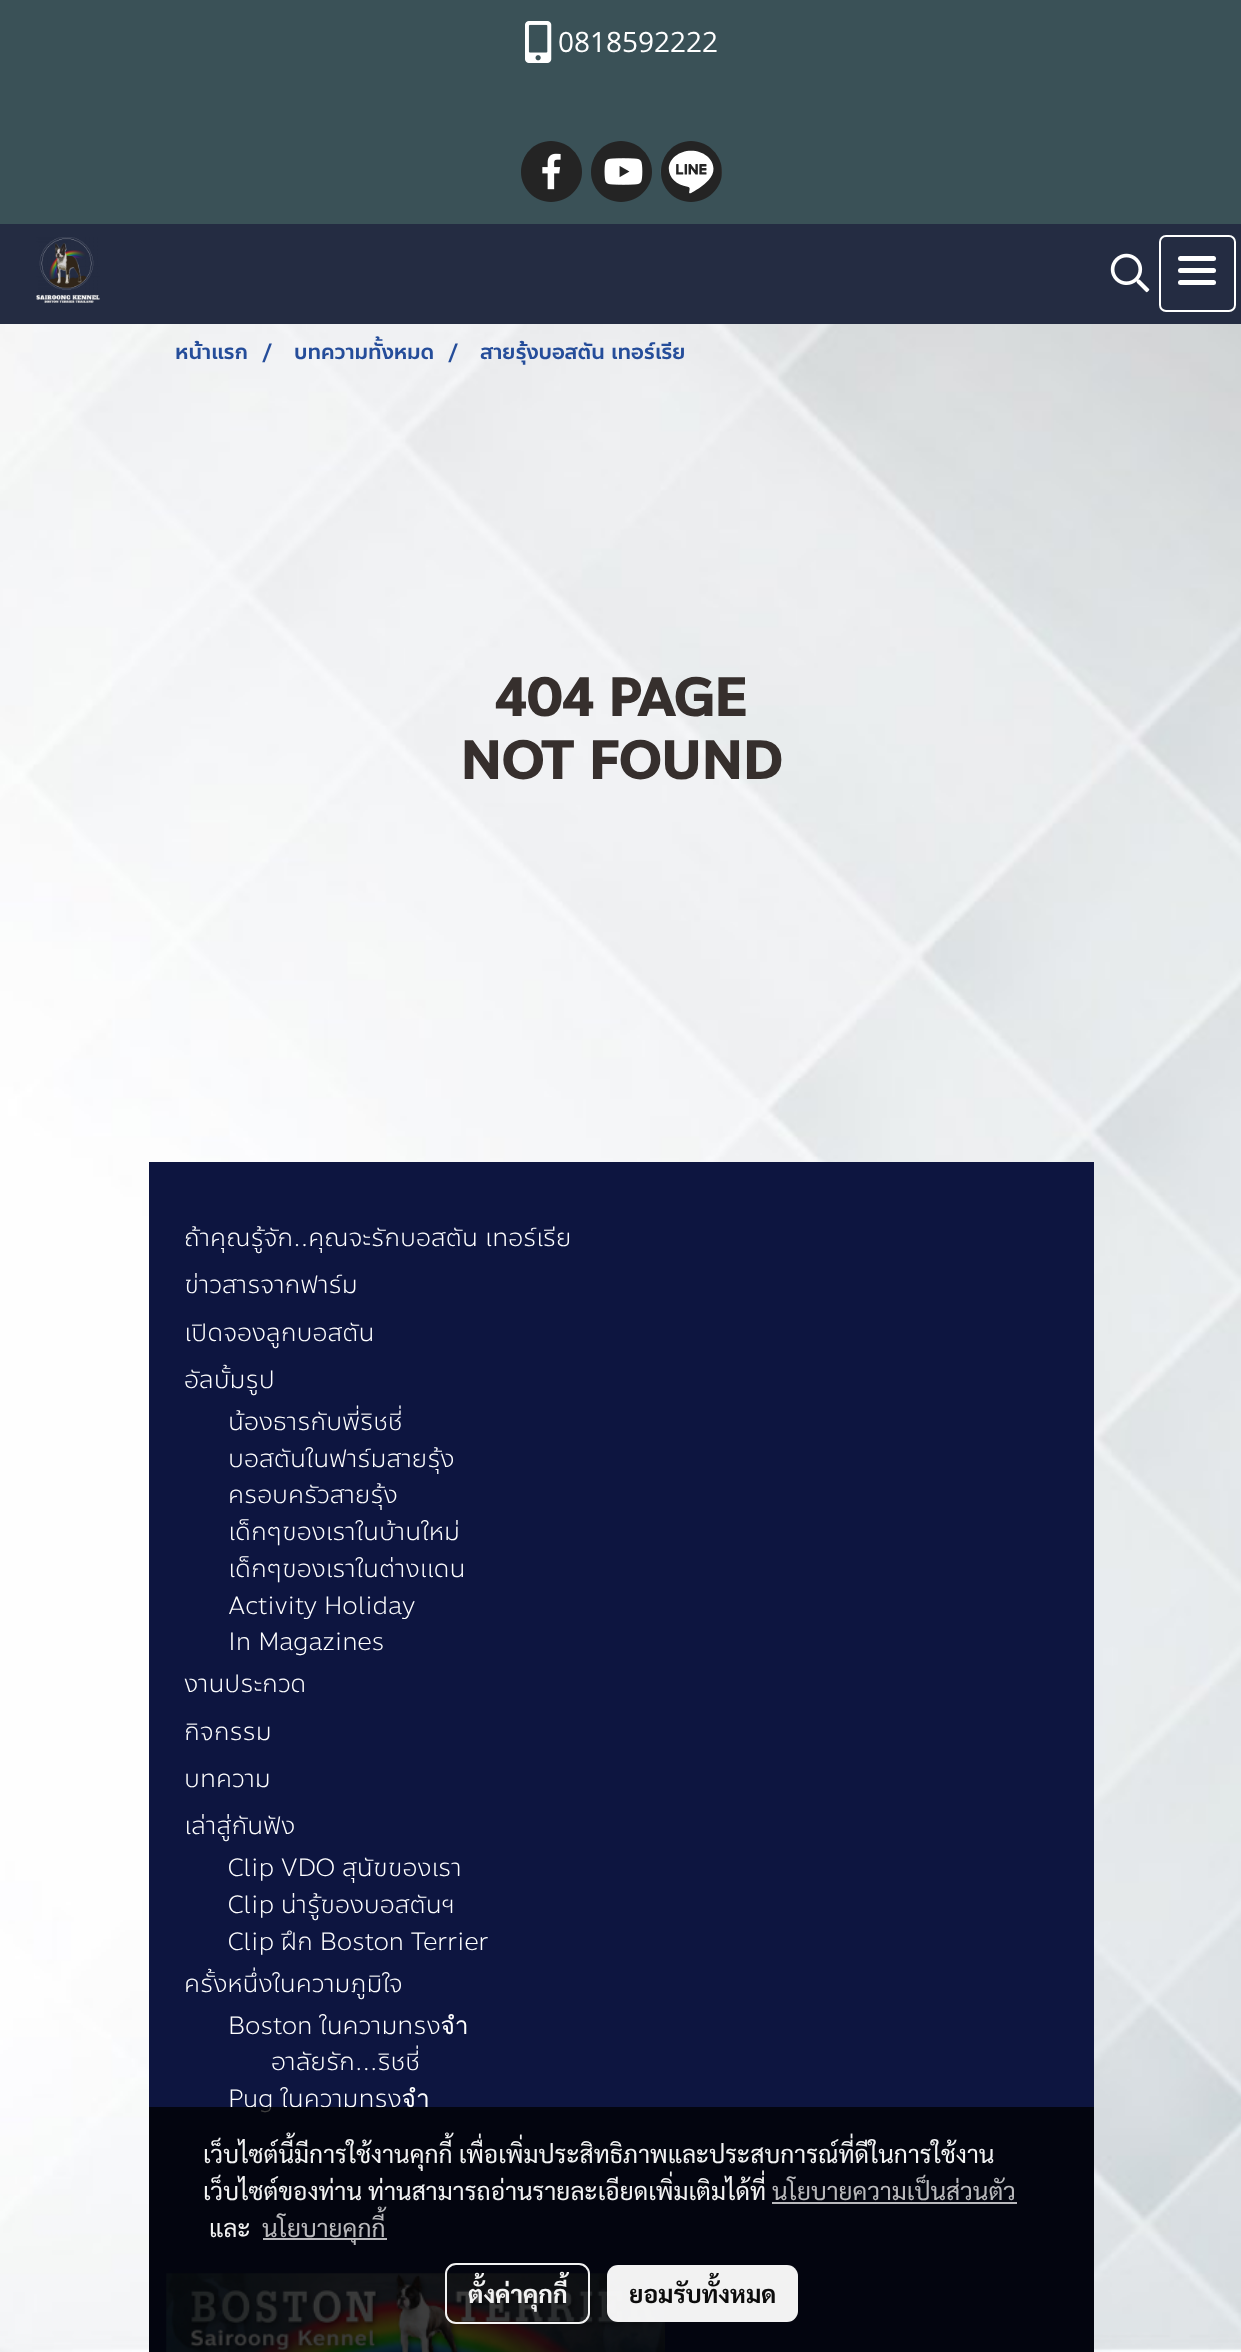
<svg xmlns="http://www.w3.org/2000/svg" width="1241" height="2352">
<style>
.a{font:28px Open Sans;fill:#fff}
.b{font:500 21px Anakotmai;fill:#254d9a}
.c{font:bold 52.5px Anakotmai;fill:#362f2d}
.d{font:300 24.5px Anakotmai;fill:#fff}
.e{font:24.5px Sarabun;fill:#f2f3f3}
.f{font:24.5px Sarabun;fill:#b9b9bc}
.g{font:bold 24.5px Sarabun;fill:#f2f3f3}
.h{font:bold 24.5px Sarabun;fill:#0c0c0c}
</style>
<rect width="100%" height="100%" fill="#fff"/>
<image href="1.png" x="0" y="324" width="1241" height="2028"/>
<path fill="#242c42" d="M0 224h1241v100H0z"/>
<path fill="#3a5157" d="M0 0h1241v224H0z"/>
<image href="2.png" x="525" y="21" width="27" height="42"/>
<path fill="#242424" d="M551 141c-17 0-30 14-30 31c0 16 13 30 30 30c17 0 31-14 31-30c0-17-14-31-31-31z"/>
<image href="3.png" x="542" y="153" width="19" height="37"/>
<path fill="#242424" d="M621 141c-17 0-30 14-30 31c0 16 13 30 30 30c17 0 31-14 31-30c0-17-14-31-31-31z"/>
<image href="4.png" x="604" y="158" width="39" height="27"/>
<path fill="#242424" d="M691 141c-17 0-30 14-30 31c0 16 13 30 30 30c17 0 31-14 31-30c0-17-14-31-31-31z"/>
<image href="5.png" x="660" y="150" width="62" height="44"/>
<image href="6.png" x="36" y="237" width="64" height="66"/>
<image href="7.png" x="1110" y="253" width="40" height="40"/>
<rect fill="none" stroke="#fff" stroke-width="2" x="1160" y="236" width="75" height="75" rx="6"/>
<rect fill="#fff" x="1178" y="268" width="38" height="5" rx="2.5"/>
<rect fill="#fff" x="1178" y="256" width="38" height="5" rx="2.5"/>
<rect fill="#fff" x="1178" y="280" width="38" height="5" rx="2.5"/>
<path fill="#0d1540" d="M149 1162h945v1190H149z"/>
<image href="8.png" x="166" y="2273" width="499" height="79"/>
<text class="a" x="558" y="52">0818592222</text>
<text class="b" x="175" y="359">หน้าแรก</text>
<text class="b" x="262" y="359">/</text>
<text class="b" x="294" y="359">บทความทั้งหมด</text>
<text class="b" x="448" y="359">/</text>
<text class="b" x="480" y="359">สายรุ้งบอสตัน เทอร์เรีย</text>
<text class="c" x="495" y="716">404 PAGE</text>
<text class="c" x="460" y="779">NOT FOUND</text>
<text class="d" x="184" y="1246">ถ้าคุณรู้จัก..คุณจะรักบอสตัน เทอร์เรีย</text>
<text class="d" x="184" y="1293">ข่าวสารจากฟาร์ม</text>
<text class="d" x="184" y="1341">เปิดจองลูกบอสตัน</text>
<text class="d" x="184" y="1388">อัลบั้มรูป</text>
<text class="d" x="228" y="1430">น้องธารกับพี่ริชชี่</text>
<text class="d" x="228" y="1467">บอสตันในฟาร์มสายรุ้ง</text>
<text class="d" x="228" y="1503">ครอบครัวสายรุ้ง</text>
<text class="d" x="228" y="1540">เด็กๆของเราในบ้านใหม่</text>
<text class="d" x="228" y="1577">เด็กๆของเราในต่างแดน</text>
<text class="d" x="228" y="1614">Activity Holiday</text>
<text class="d" x="228" y="1650">In Magazines</text>
<text class="d" x="184" y="1692">งานประกวด</text>
<text class="d" x="184" y="1740">กิจกรรม</text>
<text class="d" x="184" y="1787">บทความ</text>
<text class="d" x="184" y="1834">เล่าสู่กันฟัง</text>
<text class="d" x="228" y="1876">Clip VDO สุนัขของเรา</text>
<text class="d" x="228" y="1913">Clip น่ารู้ของบอสตันฯ</text>
<text class="d" x="228" y="1950">Clip ฝึก Boston Terrier</text>
<text class="d" x="184" y="1992">ครั้งหนึ่งในความภูมิใจ</text>
<text class="d" x="228" y="2034">Boston ในความทรงจำ</text>
<text class="d" x="271" y="2070">อาลัยรัก...ริชชี่</text>
<text class="d" x="228" y="2107">Pug ในความทรงจำ</text>
<path fill="#000000c2" d="M149 2107h945v245H149z"/>
<text class="e" x="203" y="2163">เว็บไซต์นี้มีการใช้งานคุกกี้ เพื่อเพิ่มประสิทธิภาพและประสบการณ์ที่ดีในการใช้งาน</text>
<text class="e" x="203" y="2200">เว็บไซต์ของท่าน ท่านสามารถอ่านรายละเอียดเพิ่มเติมได้ที่</text>
<text class="f" x="772" y="2200">นโยบายความเป็นส่วนตัว</text>
<path fill="#b9b9bc" d="M772 2202h245v2H772z"/>
<text class="e" x="209" y="2237">และ</text>
<path fill="#b9b9bc" d="M263 2238h124v2H263z"/>
<text class="f" x="262" y="2237">นโยบายคุกกี้</text>
<rect fill="none" stroke="#fffffff2" stroke-width="2" x="446" y="2264" width="143" height="59" rx="10"/>
<text class="g" x="468" y="2303">ตั้งค่าคุกกี้</text>
<rect fill="#fffffff2" x="607" y="2265" width="191" height="57" rx="11"/>
<text class="h" x="629" y="2303">ยอมรับทั้งหมด</text>
</svg>
